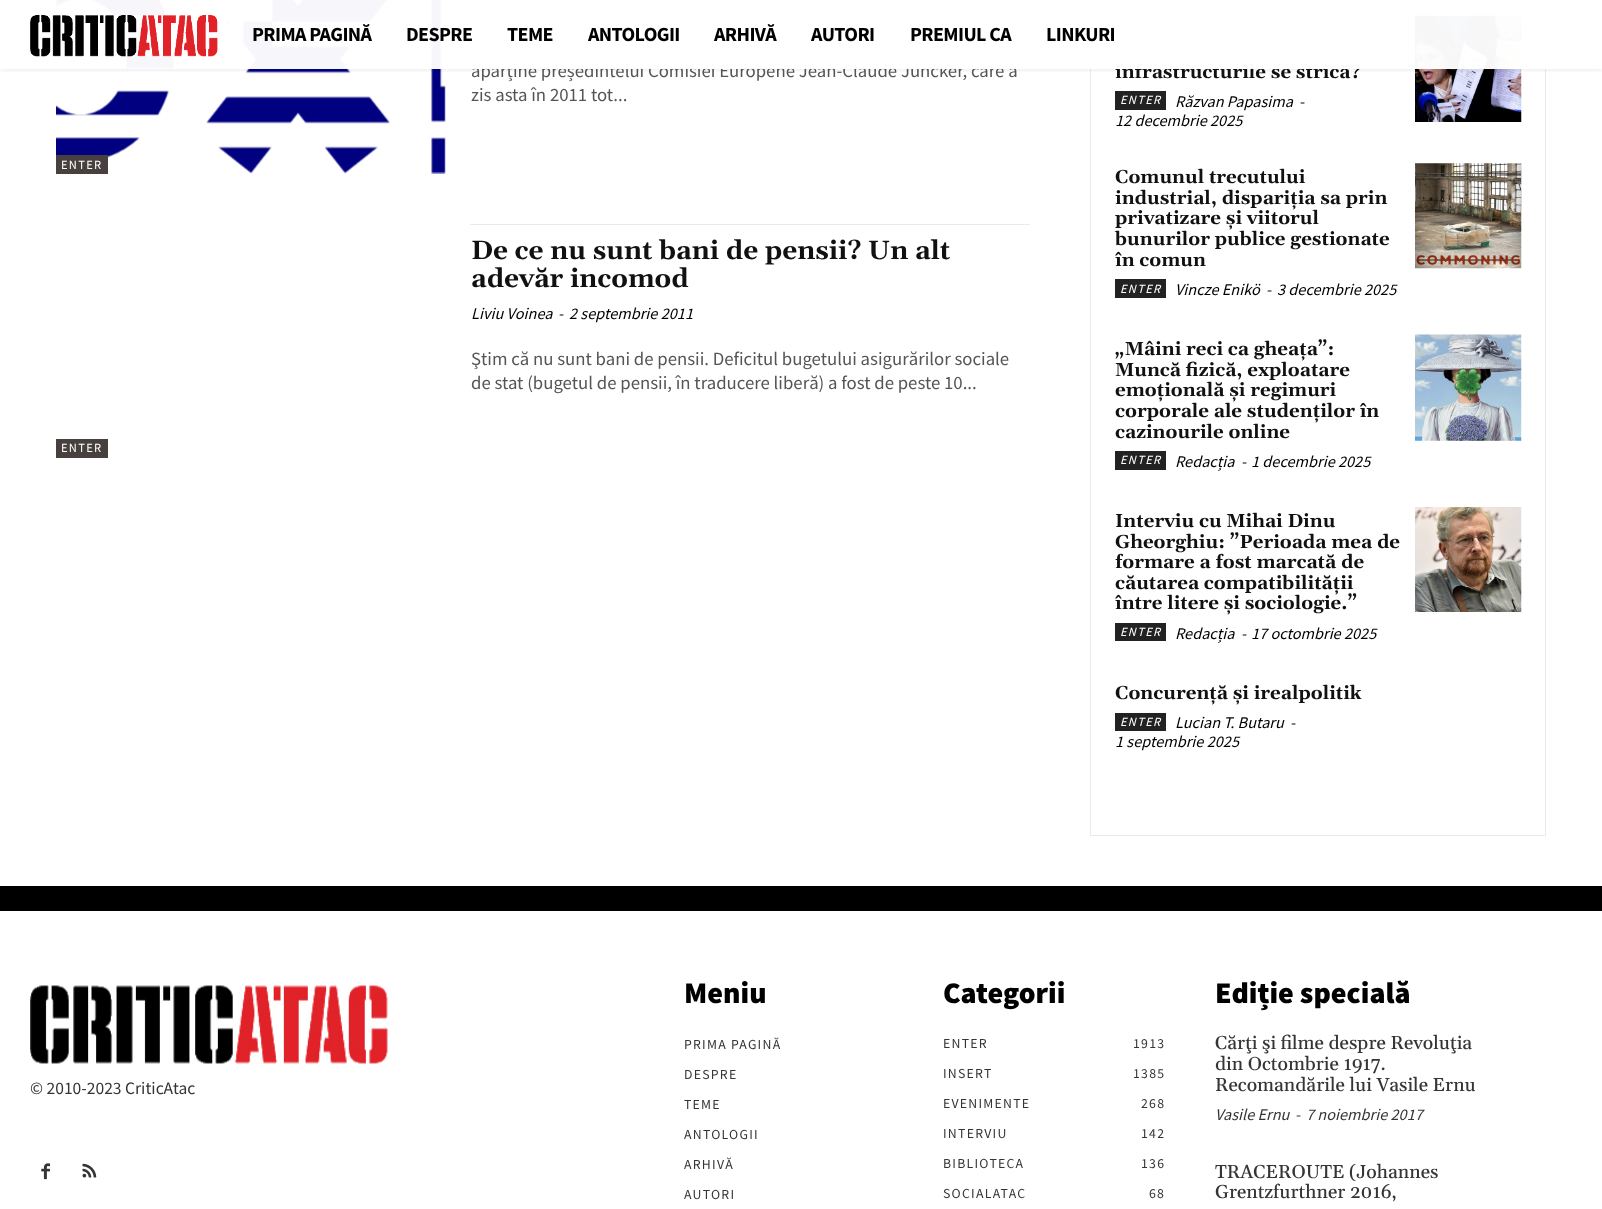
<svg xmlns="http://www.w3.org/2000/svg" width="1602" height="1209">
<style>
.a{font:18.75px Source Sans Pro;fill:#555}
.b{font:12.5px Source Sans Pro;letter-spacing:1.25px;fill:#fff}
.c{font:bold 26.25px Gelasio;fill:#111}
.d{font:italic 16.25px Source Sans Pro;fill:#000}
.e{font:bold 18.75px Gelasio;fill:#111}
.f{font:bold 20px Source Sans Pro;letter-spacing:-0.6px;fill:#000}
.g{font:italic 12.5px Source Sans Pro;letter-spacing:1.25px;fill:#fff}
.h{font:17.5px Source Sans Pro;fill:#353535}
.i{font:900 30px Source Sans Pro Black;fill:#000}
.j{font:13.75px Source Sans Pro;letter-spacing:1.25px;fill:#353535}
.k{font:500 18.75px Gelasio;fill:#353535}
.l{font:italic 16.25px Source Sans Pro;fill:#353535}
</style>
<defs>
<clipPath id="clip1"><path d="M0 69h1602v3H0z"/></clipPath>
</defs>
<rect width="100%" height="100%" fill="#fff"/>
<image href="2.png" x="56" y="0" width="390" height="174"/>
<path fill="#47403e" d="M56 155h52v19H56z"/>
<path fill="#eaeaea" d="M470 224h560v1H470z"/>
<path fill="#47403e" d="M56 439h52v19H56z"/>
<path fill="none" stroke="#eaeaea" d="M1090.5 -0.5h455v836H1090.5z"/>
<path fill="#222" d="M1115 91h51v19H1115z"/>
<image href="3.png" x="1415" y="15" width="107" height="107"/>
<path fill="#222" d="M1115 279h51v19H1115z"/>
<image href="4.png" x="1415" y="163" width="107" height="106"/>
<path fill="#222" d="M1115 451h51v19H1115z"/>
<image href="5.png" x="1415" y="334" width="107" height="107"/>
<path fill="#222" d="M1115 623h51v18H1115z"/>
<image href="6.png" x="1415" y="507" width="107" height="105"/>
<path fill="#222" d="M1115 713h51v18H1115z"/>
<path fill="#000" d="M0 886h1602v25H0z"/>
<image href="7.png" x="30" y="985" width="358" height="79"/>
<image href="8.png" x="41" y="1163" width="9" height="17"/>
<image href="9.png" x="82" y="1163" width="15" height="15"/>
<text class="a" x="471" y="77">aparține președintelui Comisiei Europene Jean-Claude Juncker, care a</text>
<text class="a" x="471" y="101">zis asta în 2011 tot...</text>
<text class="b" x="61" y="169">ENTER</text>
<text class="c" x="471" y="259">De ce nu sunt bani de pensii? Un alt</text>
<text class="c" x="471" y="287">adevăr incomod</text>
<text class="d" x="471" y="319">Liviu Voinea</text>
<text class="d" x="558" y="319">-</text>
<text class="d" x="569" y="319">2 septembrie 2011</text>
<text class="a" x="471" y="365">Ştim că nu sunt bani de pensii. Deficitul bugetului asigurărilor sociale</text>
<text class="a" x="471" y="389">de stat (bugetul de pensii, în traducere liberă) a fost de peste 10...</text>
<text class="b" x="61" y="452">ENTER</text>
<text class="e" x="1115" y="78">infrastructurile se strică?</text>
<path fill="#fffffff7" d="M56 0h1490v69H56z"/>
<image href="1.png" x="30" y="15" width="188" height="42"/>
<g clip-path="url(#clip1)">
<path fill="#0000000f" filter="blur(2.5px)" d="M0 3h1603v68H0z"/>
</g>
<text class="f" x="1046" y="41">LINKURI</text>
<text class="f" x="910" y="41">PREMIUL CA</text>
<text class="f" x="811" y="41">AUTORI</text>
<text class="f" x="714" y="41">ARHIVĂ</text>
<text class="f" x="588" y="41">ANTOLOGII</text>
<text class="f" x="507" y="41">TEME</text>
<text class="f" x="406" y="41">DESPRE</text>
<text class="f" x="252" y="41">PRIMA PAGINĂ</text>
<text class="d" x="1175" y="107">Răzvan Papasima</text>
<text class="d" x="1299" y="107">-</text>
<text class="d" x="1115" y="126">12 decembrie 2025</text>
<text class="g" x="1120" y="104">ENTER</text>
<text class="e" x="1115" y="183">Comunul trecutului</text>
<text class="e" x="1115" y="204">industrial, dispariția sa prin</text>
<text class="e" x="1115" y="224">privatizare și viitorul</text>
<text class="e" x="1115" y="245">bunurilor publice gestionate</text>
<text class="e" x="1115" y="266">în comun</text>
<text class="g" x="1120" y="293">ENTER</text>
<text class="d" x="1175" y="295">Vincze Enikö</text>
<text class="d" x="1266" y="295">-</text>
<text class="d" x="1277" y="295">3 decembrie 2025</text>
<text class="e" x="1115" y="355">„Mâini reci ca gheața”:</text>
<text class="e" x="1115" y="376">Muncă fizică, exploatare</text>
<text class="e" x="1115" y="396">emoțională și regimuri</text>
<text class="e" x="1115" y="417">corporale ale studenților în</text>
<text class="e" x="1115" y="438">cazinourile online</text>
<text class="g" x="1120" y="464">ENTER</text>
<text class="d" x="1175" y="467">Redacția</text>
<text class="d" x="1241" y="467">-</text>
<text class="d" x="1251" y="467">1 decembrie 2025</text>
<text class="e" x="1115" y="527">Interviu cu Mihai Dinu</text>
<text class="e" x="1115" y="548">Gheorghiu: ”Perioada mea de</text>
<text class="e" x="1115" y="568">formare a fost marcată de</text>
<text class="e" x="1115" y="589">căutarea compatibilității</text>
<text class="e" x="1115" y="609">între litere și sociologie.”</text>
<text class="g" x="1120" y="636">ENTER</text>
<text class="d" x="1175" y="639">Redacția</text>
<text class="d" x="1241" y="639">-</text>
<text class="d" x="1251" y="639">17 octombrie 2025</text>
<text class="e" x="1115" y="699">Concurență și irealpolitik</text>
<text class="d" x="1175" y="728">Lucian T. Butaru</text>
<text class="d" x="1290" y="728">-</text>
<text class="d" x="1115" y="747">1 septembrie 2025</text>
<text class="g" x="1120" y="726">ENTER</text>
<text class="h" x="30" y="1094">© 2010-2023 CriticAtac</text>
<text class="i" x="684" y="1003">Meniu</text>
<text class="j" x="684" y="1049">PRIMA PAGINĂ</text>
<text class="j" x="684" y="1079">DESPRE</text>
<text class="j" x="684" y="1109">TEME</text>
<text class="j" x="684" y="1139">ANTOLOGII</text>
<text class="j" x="684" y="1169">ARHIVĂ</text>
<text class="j" x="684" y="1199">AUTORI</text>
<text class="i" x="943" y="1003">Categorii</text>
<text class="j" x="943" y="1048">ENTER</text>
<text class="j" x="1133" y="1048">1913</text>
<text class="j" x="943" y="1078">INSERT</text>
<text class="j" x="1133" y="1078">1385</text>
<text class="j" x="943" y="1108">EVENIMENTE</text>
<text class="j" x="1141" y="1108">268</text>
<text class="j" x="943" y="1138">INTERVIU</text>
<text class="j" x="1141" y="1138">142</text>
<text class="j" x="943" y="1168">BIBLIOTECA</text>
<text class="j" x="1141" y="1168">136</text>
<text class="j" x="943" y="1198">SOCIALATAC</text>
<text class="j" x="1149" y="1198">68</text>
<text class="i" x="1215" y="1003">Ediție specială</text>
<text class="k" x="1215" y="1049">Cărţi şi filme despre Revoluţia</text>
<text class="k" x="1215" y="1070">din Octombrie 1917.</text>
<text class="k" x="1215" y="1091">Recomandările lui Vasile Ernu</text>
<text class="l" x="1215" y="1120">Vasile Ernu</text>
<text class="l" x="1295" y="1120">-</text>
<text class="l" x="1306" y="1120">7 noiembrie 2017</text>
<text class="k" x="1215" y="1178">TRACEROUTE (Johannes</text>
<text class="k" x="1215" y="1198">Grentzfurthner 2016,</text>
</svg>
